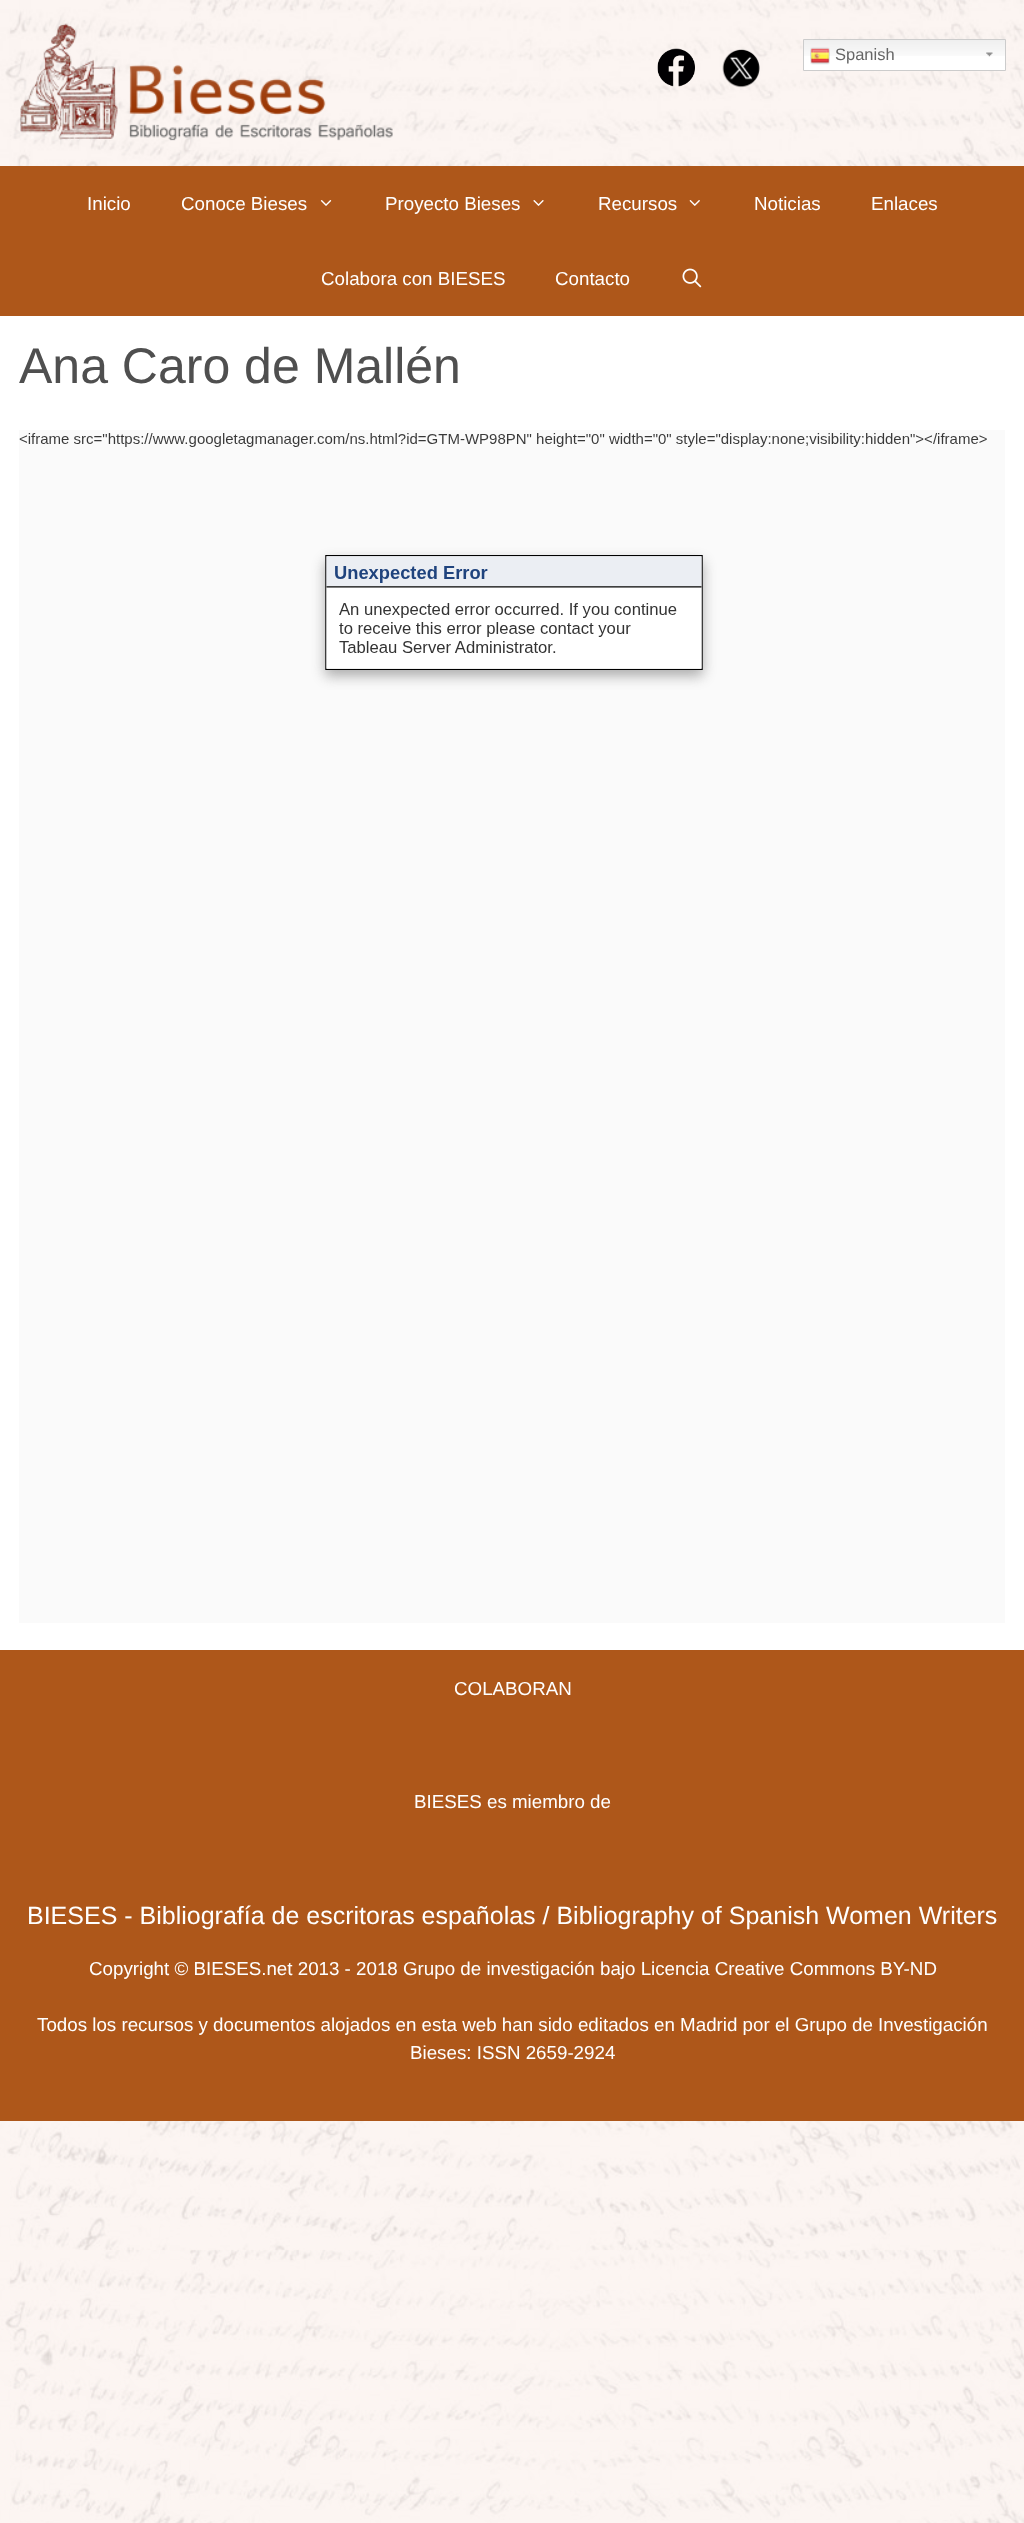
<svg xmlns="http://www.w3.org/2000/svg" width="1024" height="2523">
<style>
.a{font:16.5px Liberation Sans;fill:#666}
.b{font:18.75px Liberation Sans;fill:#fff}
.c{font:50px Liberation Sans;fill:#4f4f4f}
.d{font:25px Liberation Sans;fill:#fff}
</style>
<rect width="100%" height="100%" fill="#fff"/>
<image href="1.png" x="0" y="2121" width="1024" height="402"/>
<image href="2.png" x="0" y="0" width="1024" height="166"/>
<image href="3.png" x="20" y="23" width="373" height="118"/>
<image href="4.png" x="657" y="48" width="38" height="39"/>
<image href="5.png" x="722" y="49" width="38" height="39"/>
<path fill="#fff" d="M804 56h201v14H804z"/>
<image href="6.png" x="804" y="40" width="201" height="16"/>
<image href="7.png" x="986" y="52" width="7" height="5"/>
<path fill="none" stroke="#ccc" d="M803.5 39.5h202v31H803.5z"/>
<image href="8.png" x="810" y="47" width="20" height="18"/>
<path fill="#ae571a" d="M0 166h1024v150H0z"/>
<image href="9.png" x="320" y="200" width="12" height="6"/>
<image href="10.png" x="533" y="200" width="11" height="6"/>
<image href="11.png" x="689" y="200" width="11" height="6"/>
<image href="12.png" x="682" y="268" width="20" height="20"/>
<image href="13.png" x="19" y="430" width="986" height="1193"/>
<path fill="#ae571a" d="M0 1650h1024v471H0z"/>
<text class="a" x="835" y="60">Spanish</text>
<text class="b" x="87" y="210">Inicio</text>
<text class="b" x="181" y="210">Conoce Bieses</text>
<text class="b" x="385" y="210">Proyecto Bieses</text>
<text class="b" x="598" y="210">Recursos</text>
<text class="b" x="754" y="210">Noticias</text>
<text class="b" x="871" y="210">Enlaces</text>
<text class="b" x="321" y="285">Colabora con BIESES</text>
<text class="b" x="555" y="285">Contacto</text>
<text class="c" x="19" y="383">Ana Caro de Mallén</text>
<text class="b" x="454" y="1695">COLABORAN</text>
<text class="b" x="414" y="1808">BIESES es miembro de</text>
<text class="d" x="27" y="1924">BIESES - Bibliografía de escritoras españolas / Bibliography of Spanish Women Writers</text>
<text class="b" x="89" y="1975">Copyright © BIESES.net 2013 - 2018 Grupo de investigación bajo Licencia Creative Commons BY-ND</text>
<text class="b" x="37" y="2031">Todos los recursos y documentos alojados en esta web han sido editados en Madrid por el Grupo de Investigación</text>
<text class="b" x="410" y="2059">Bieses: ISSN 2659-2924</text>
</svg>
